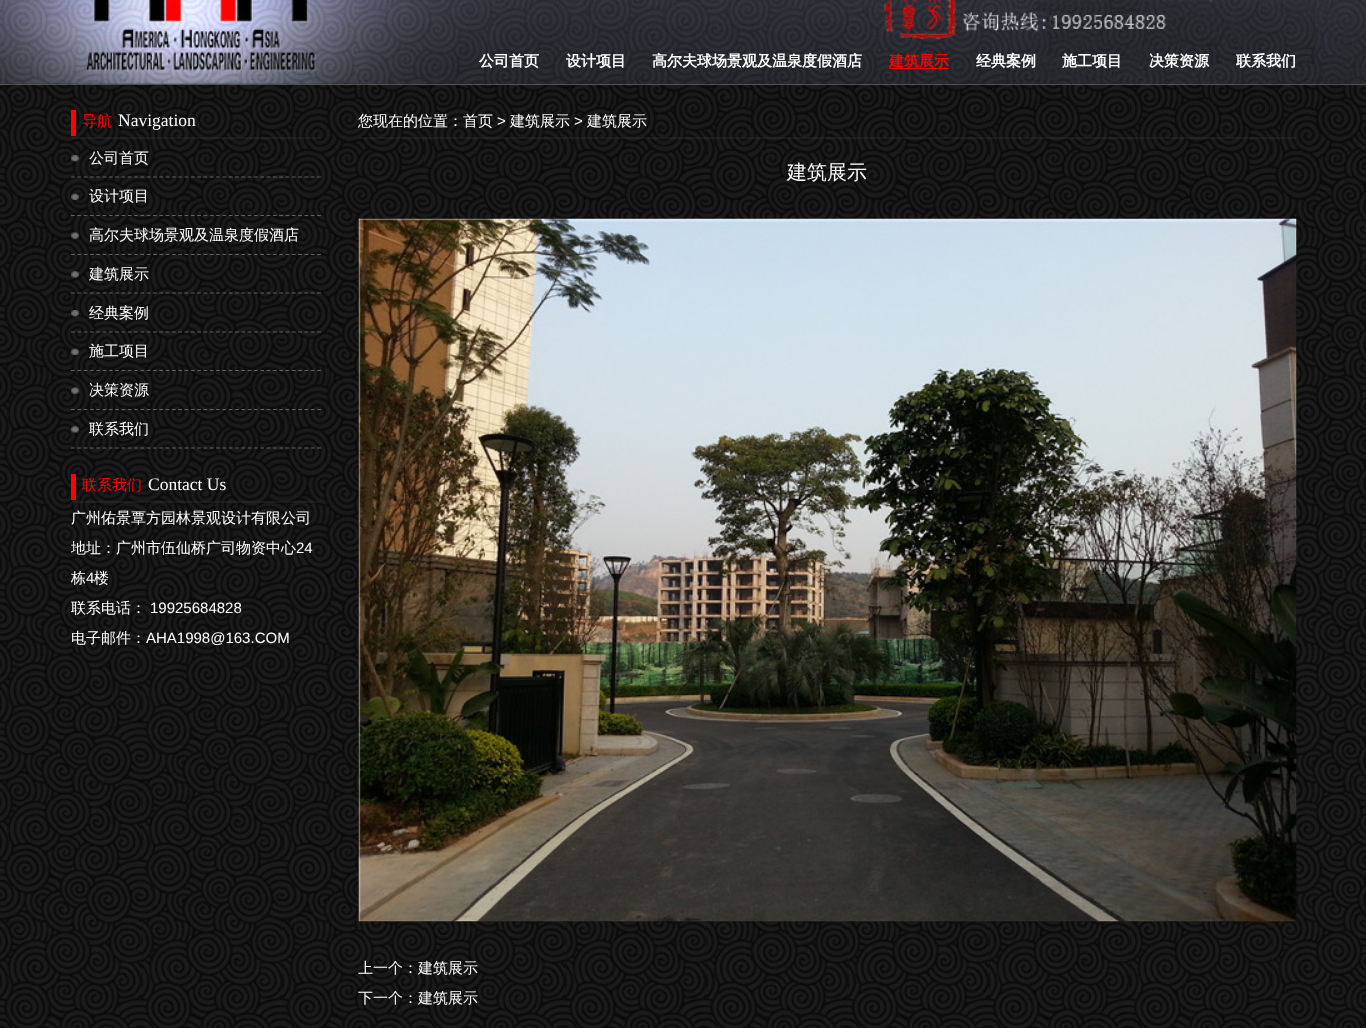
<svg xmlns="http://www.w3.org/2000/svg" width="1366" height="1028">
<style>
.a{font:bold 15px WenQuanYi Zen Hei;fill:#fff}
.b{font:bold 15px WenQuanYi Zen Hei;fill:#f00}
.c{font:500 15px WenQuanYi Zen Hei;fill:#f00}
.d{font:17.5px Liberation Serif;fill:#fff}
.e{font:500 15px WenQuanYi Zen Hei;fill:#fff}
.f{font:15px Liberation Sans;fill:#fff}
.g{font:500 20px WenQuanYi Zen Hei;fill:#fff}
</style>
<rect width="100%" height="100%" fill="#fff"/>
<image href="1.png" x="0" y="85" width="1366" height="943"/>
<image href="2.png" x="0" y="83" width="1366" height="2"/>
<image href="3.png" x="0" y="0" width="1366" height="84"/>
<path fill="#f00" d="M889 68h60v1H889z"/>
<image href="4.png" x="71" y="137" width="250" height="2"/>
<path fill="#ff0101" d="M71 110h5v26H71z"/>
<image href="5.png" x="71" y="155" width="8" height="7"/>
<path fill="none" stroke="#616161" stroke-width="1.2" stroke-dasharray="3.75 2.56" d="M71 177h250"/>
<image href="6.png" x="71" y="193" width="8" height="7"/>
<path fill="none" stroke="#616161" stroke-width="1.2" stroke-dasharray="3.75 2.56" d="M71 215.5h250"/>
<image href="7.png" x="71" y="232" width="8" height="7"/>
<path fill="none" stroke="#616161" stroke-width="1.2" stroke-dasharray="3.75 2.56" d="M71 254.5h250"/>
<image href="8.png" x="71" y="271" width="8" height="7"/>
<path fill="none" stroke="#616161" stroke-width="1.2" stroke-dasharray="3.75 2.56" d="M71 293h250"/>
<image href="9.png" x="71" y="310" width="8" height="7"/>
<path fill="none" stroke="#616161" stroke-width="1.2" stroke-dasharray="3.75 2.56" d="M71 332h250"/>
<image href="10.png" x="71" y="348" width="8" height="7"/>
<path fill="none" stroke="#616161" stroke-width="1.2" stroke-dasharray="3.75 2.56" d="M71 370.5h250"/>
<image href="11.png" x="71" y="387" width="8" height="7"/>
<path fill="none" stroke="#616161" stroke-width="1.2" stroke-dasharray="3.75 2.56" d="M71 409.5h250"/>
<image href="12.png" x="71" y="426" width="8" height="7"/>
<path fill="none" stroke="#616161" stroke-width="1.2" stroke-dasharray="3.75 2.56" d="M71 448h250"/>
<image href="13.png" x="71" y="501" width="250" height="2"/>
<path fill="#ff0101" d="M71 474h5v26H71z"/>
<image href="14.png" x="359" y="137" width="937" height="2"/>
<image href="15.png" x="358" y="218" width="939" height="704"/>
<text class="a" x="479" y="66">公司首页</text>
<text class="a" x="566" y="66">设计项目</text>
<text class="a" x="652" y="66">高尔夫球场景观及温泉度假酒店</text>
<text class="b" x="889" y="66">建筑展示</text>
<text class="a" x="976" y="66">经典案例</text>
<text class="a" x="1062" y="66">施工项目</text>
<text class="a" x="1149" y="66">决策资源</text>
<text class="a" x="1236" y="66">联系我们</text>
<text class="c" x="82" y="126">导航</text>
<text class="d" x="118" y="126">Navigation</text>
<text class="e" x="89" y="163">公司首页</text>
<text class="e" x="89" y="201">设计项目</text>
<text class="e" x="89" y="240">高尔夫球场景观及温泉度假酒店</text>
<text class="e" x="89" y="279">建筑展示</text>
<text class="e" x="89" y="318">经典案例</text>
<text class="e" x="89" y="356">施工项目</text>
<text class="e" x="89" y="395">决策资源</text>
<text class="e" x="89" y="434">联系我们</text>
<text class="c" x="82" y="490">联系我们</text>
<text class="d" x="148" y="490">Contact Us</text>
<text class="e" x="71" y="523">广州佑景覃方园林景观设计有限公司</text>
<text class="e" x="71" y="553">地址：广州市伍仙桥广司物资中心</text>
<text class="f" x="296" y="553">24</text>
<text class="e" x="71" y="583">栋</text>
<text class="f" x="86" y="583">4</text>
<text class="e" x="94" y="583">楼</text>
<text class="e" x="71" y="613">联系电话：</text>
<text class="f" x="150" y="613">19925684828</text>
<text class="e" x="71" y="643">电子邮件：</text>
<text class="f" x="146" y="643">AHA1998@163.COM</text>
<text class="e" x="358" y="126">您现在的位置：首页</text>
<text class="f" x="497" y="126">&gt;</text>
<text class="e" x="510" y="126">建筑展示</text>
<text class="f" x="574" y="126">&gt;</text>
<text class="e" x="587" y="126">建筑展示</text>
<text class="g" x="787" y="179">建筑展示</text>
<text class="e" x="358" y="973">上一个：建筑展示</text>
<text class="e" x="358" y="1003">下一个：建筑展示</text>
</svg>
